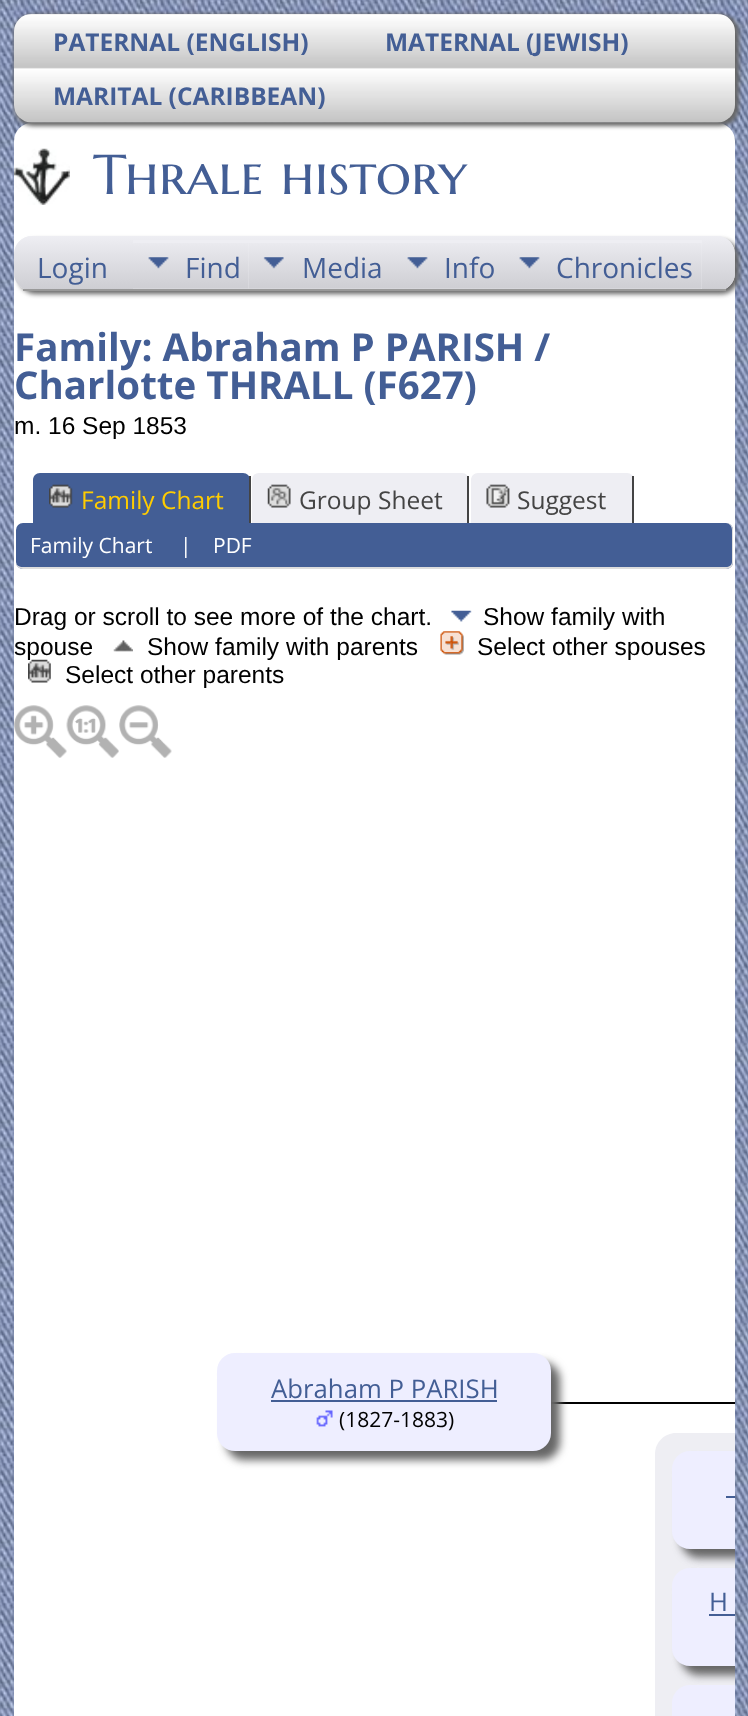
<svg xmlns="http://www.w3.org/2000/svg" width="748" height="1716">
<style>
.a{font:bold 24.5px Open Sans;fill:#435e95}
.b{font:56px Marcellus SC;fill:#435e95}
.c{font:28px Open Sans;fill:#435e95}
.d{font:bold 38.5px Open Sans;fill:#435e95}
.e{font:24.5px Liberation Sans;fill:#000}
.f{font:24.5px Open Sans;fill:#fc0}
.g{font:24.5px Open Sans;fill:#444}
.h{font:21px Open Sans;fill:#fff}
.i{font:25.75px Open Sans;fill:#435e95}
.j{font:21px Open Sans;fill:#000}
</style>
<defs>
<clipPath id="clip1"><rect x="14" y="236" width="721" height="55" rx="18"/></clipPath>
<linearGradient id="g1" gradientUnits="userSpaceOnUse" x1="375" y1="236" x2="375" y2="289"><stop offset="0" stop-color="#eeeef3"/><stop offset="1" stop-color="#ceced3"/></linearGradient>
<clipPath id="clip2"><path d="M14 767h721v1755H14z"/></clipPath>
</defs>
<rect width="100%" height="100%" fill="#fff"/>
<image href="1.png" x="0" y="0" width="748" height="1716"/>
<rect fill="#fff" x="14" y="123" width="721" height="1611" rx="18"/>
<rect fill="#666" filter="blur(2px)" x="14" y="14" width="725" height="112" rx="19"/>
<image href="2.png" x="14" y="14" width="721" height="109"/>
<image href="3.png" x="14" y="148" width="56" height="57"/>
<rect fill="#666" filter="blur(2.5px)" x="18" y="240" width="721" height="54" rx="18"/>
<rect fill="#eeeef3" x="14" y="236" width="721" height="55" rx="18"/>
<g clip-path="url(#clip1)">
<path fill="url(#g1)" d="M32 236h685c10 0 18 8 18 18v35h-721v-35c0-10 8-18 18-18z"/>
</g>
<path fill="#999" d="M23 289h703v2H23z"/>
<path fill="#eeeef3" d="M133 240h569v49H133z"/>
<image href="4.png" x="133" y="243" width="116" height="46"/>
<image href="5.png" x="248" y="243" width="144" height="46"/>
<image href="6.png" x="392" y="243" width="112" height="46"/>
<image href="7.png" x="504" y="243" width="198" height="46"/>
<path fill="#435e95" d="M40 473h203c4 0 7 3 7 7v43h-217v-43c0-4 3-7 7-7z"/>
<path fill="#444" d="M249 476h2v47H249z"/>
<image href="8.png" x="49" y="484" width="24" height="24"/>
<path fill="#eeeef3" d="M259 473h203c4 0 7 3 7 7v43h-217v-43c0-4 3-7 7-7z"/>
<path fill="#444" d="M467 476h2v47H467z"/>
<image href="9.png" x="267" y="484" width="24" height="24"/>
<path fill="#eeeef3" d="M478 473h149c4 0 7 3 7 7v43h-163v-43c0-4 3-7 7-7z"/>
<path fill="#444" d="M632 476h2v47H632z"/>
<image href="10.png" x="486" y="484" width="24" height="24"/>
<rect fill="#435e95" x="16" y="523" width="717" height="46" rx="7"/>
<path fill="#ddd" fill-rule="evenodd" d="M23 523h703c4 0 7 3 7 7v32c0 4-3 7-7 7h-703c-4 0-7-3-7-7v-32c0-4 3-7 7-7zm0 0h703c3 0 6 3 6 7v32c0 3-3 5-6 5h-703c-4 0-7-2-7-5v-32c0-4 3-7 7-7z"/>
<image href="11.png" x="451" y="610" width="21" height="12"/>
<image href="12.png" x="113" y="640" width="20" height="12"/>
<image href="13.png" x="440" y="631" width="24" height="24"/>
<image href="15.png" x="14" y="705" width="53" height="53"/>
<image href="16.png" x="66" y="705" width="53" height="53"/>
<image href="17.png" x="119" y="705" width="53" height="53"/>
<path fill="#000" d="M551 1402h184v2H551z"/>
<rect fill="#666" filter="blur(4.5px)" x="226" y="1362" width="334" height="98" rx="18"/>
<rect fill="#eef" x="217" y="1353" width="334" height="98" rx="18"/>
<path fill="#435e95" d="M271 1400h226v2H271z"/>
<image href="18.png" x="316" y="1410" width="17" height="17"/>
<path fill="#eeeef3" d="M676 1433h59v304h-59c-11.5 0-21-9.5-21-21v-262c0-11.5 9.5-21 21-21z"/>
<g clip-path="url(#clip2)">
<rect fill="#666" filter="blur(4.5px)" x="681" y="1460" width="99" height="98" rx="18"/>
</g>
<path fill="#eef" d="M690 1451h45v98h-45c-10 0-18-8-18-18v-62c0-10 8-18 18-18z"/>
<path fill="#435e95" d="M726 1496h9v2H726z"/>
<g clip-path="url(#clip2)">
<rect fill="#666" filter="blur(4.5px)" x="681" y="1577" width="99" height="98" rx="18"/>
</g>
<path fill="#eef" d="M690 1568h45v98h-45c-10 0-18-8-18-18v-62c0-10 8-18 18-18z"/>
<path fill="#435e95" d="M709 1614h26v2H709z"/>
<path fill="#eef" d="M690 1685h45v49h-45c-10 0-18-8-18-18v-13c0-10 8-18 18-18z"/>
<text class="a" x="53" y="51">PATERNAL (ENGLISH)</text>
<text class="a" x="385" y="51">MATERNAL (JEWISH)</text>
<text class="a" x="53" y="105">MARITAL (CARIBBEAN)</text>
<text class="b" x="93" y="194">Thrale history</text>
<text class="c" x="37" y="278">Login</text>
<text class="c" x="185" y="278">Find</text>
<text class="c" x="302" y="278">Media</text>
<text class="c" x="444" y="278">Info</text>
<text class="c" x="556" y="278">Chronicles</text>
<text class="d" x="14" y="361">Family: Abraham P PARISH /</text>
<text class="d" x="14" y="399">Charlotte THRALL (F627)</text>
<text class="e" x="14" y="434">m. 16 Sep 1853</text>
<text class="f" x="81" y="509">Family Chart</text>
<text class="g" x="299" y="509">Group Sheet</text>
<text class="g" x="517" y="509">Suggest</text>
<text class="h" x="30" y="553">Family Chart</text>
<text class="h" x="180" y="553">|</text>
<text class="h" x="213" y="553">PDF</text>
<text class="e" x="14" y="625">Drag or scroll to see more of the chart.</text>
<text class="e" x="483" y="625">Show family with</text>
<text class="e" x="14" y="655">spouse</text>
<text class="e" x="147" y="655">Show family with parents</text>
<text class="e" x="477" y="655">Select other spouses</text>
<image href="14.png" x="28" y="659" width="23" height="24"/>
<text class="e" x="65" y="683">Select other parents</text>
<text class="i" x="271" y="1398">Abraham P PARISH</text>
<text class="j" x="339" y="1427">(1827-1883)</text>
<text class="i" x="709" y="1611">H</text>
</svg>
